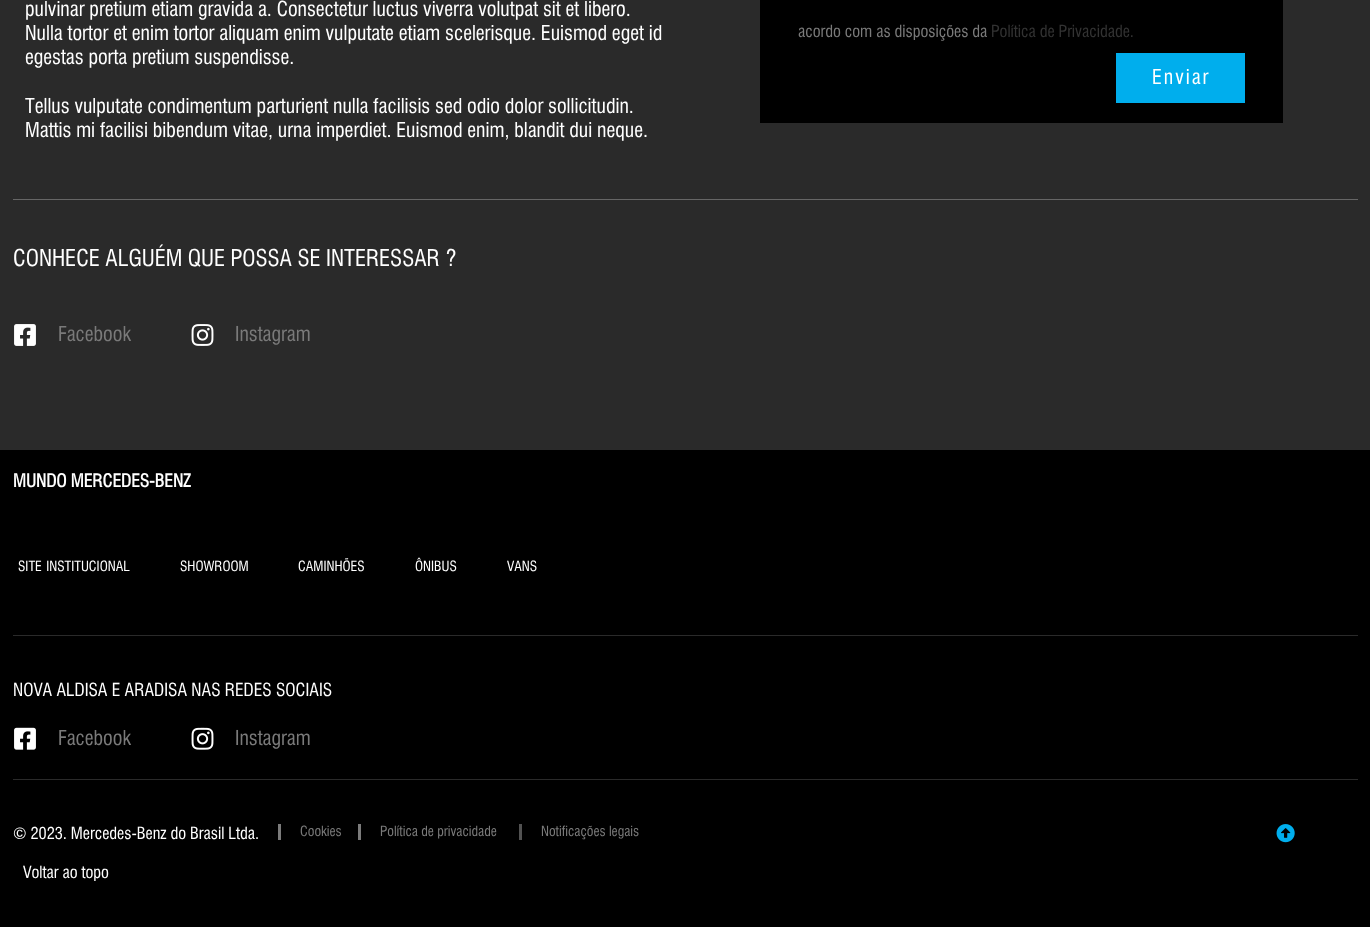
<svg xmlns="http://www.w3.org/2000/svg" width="1370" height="927">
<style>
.a{font:20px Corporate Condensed;fill:#fff}
.b{font:16.25px Corporate Condensed;fill:#7a7a7a}
.c{font:16.25px Corporate Condensed;fill:#333}
.d{font:20px Corporate Condensed;letter-spacing:2px;fill:#fff}
.e{font:22.5px Corporate Condensed;fill:#fff}
.f{font:20px Corporate Condensed;fill:#7a7a7a}
.g{font:bold 17.5px Corporate Condensed;fill:#fff}
.h{font:13.75px Corporate Condensed;fill:#fff}
.i{font:17.5px Corporate Condensed;fill:#fff}
.j{font:16.25px Corporate Condensed;fill:#fff}
.k{font:13.75px Corporate Condensed;fill:#7a7a7a}
</style>
<rect width="100%" height="100%" fill="#2a2a2a"/>
<path fill="#000" d="M760 0h523v123H760z"/>
<path fill="#00aeed" d="M1116 53h129v50H1116z"/>
<path fill="#666" d="M13 199h1345v1H13z"/>
<image href="1.png" x="14" y="324" width="22" height="22"/>
<image href="2.png" x="191" y="324" width="23" height="22"/>
<path fill="#000" d="M0 450h1370v477H0z"/>
<path fill="#2a2a2a" d="M13 635h1345v1H13z"/>
<image href="3.png" x="14" y="727" width="22" height="23"/>
<image href="4.png" x="191" y="727" width="23" height="23"/>
<path fill="#2a2a2a" d="M13 779h1345v1H13z"/>
<path fill="#7b7b7b" d="M358 824h3v16H358z"/>
<path fill="#7b7b7b" d="M278 824h3v16H278z"/>
<path fill="#525252" d="M519 824h3v16H519z"/>
<image href="5.png" x="1276" y="824" width="19" height="19"/>
<text class="a" x="25" y="16">pulvinar pretium etiam gravida a. Consectetur luctus viverra volutpat sit et libero.</text>
<text class="a" x="25" y="40">Nulla tortor et enim tortor aliquam enim vulputate etiam scelerisque. Euismod eget id</text>
<text class="a" x="25" y="64">egestas porta pretium suspendisse.</text>
<text class="a" x="25" y="113">Tellus vulputate condimentum parturient nulla facilisis sed odio dolor sollicitudin.</text>
<text class="a" x="25" y="137">Mattis mi facilisi bibendum vitae, urna imperdiet. Euismod enim, blandit dui neque.</text>
<text class="b" x="798" y="37">acordo com as disposições da</text>
<text class="c" x="991" y="37">Política de Privacidade.</text>
<text class="d" x="1152" y="84">Enviar</text>
<text class="e" x="13" y="266">CONHECE ALGUÉM QUE POSSA SE INTERESSAR ?</text>
<text class="f" x="58" y="341">Facebook</text>
<text class="f" x="235" y="341">Instagram</text>
<text class="g" x="13" y="487">MUNDO MERCEDES-BENZ</text>
<text class="h" x="18" y="571" word-spacing="1">SITE INSTITUCIONAL</text>
<text class="h" x="180" y="571">SHOWROOM</text>
<text class="h" x="298" y="571">CAMINHÕES</text>
<text class="h" x="415" y="571">ÔNIBUS</text>
<text class="h" x="507" y="571">VANS</text>
<text class="i" x="13" y="696">NOVA ALDISA E ARADISA NAS REDES SOCIAIS</text>
<text class="f" x="58" y="745">Facebook</text>
<text class="f" x="235" y="745">Instagram</text>
<text class="j" x="13" y="839">© 2023. Mercedes-Benz do Brasil Ltda.</text>
<text class="k" x="300" y="836">Cookies</text>
<text class="k" x="380" y="836">Política de privacidade</text>
<text class="k" x="541" y="836">Notificações legais</text>
<text class="j" x="23" y="878">Voltar ao topo</text>
</svg>
